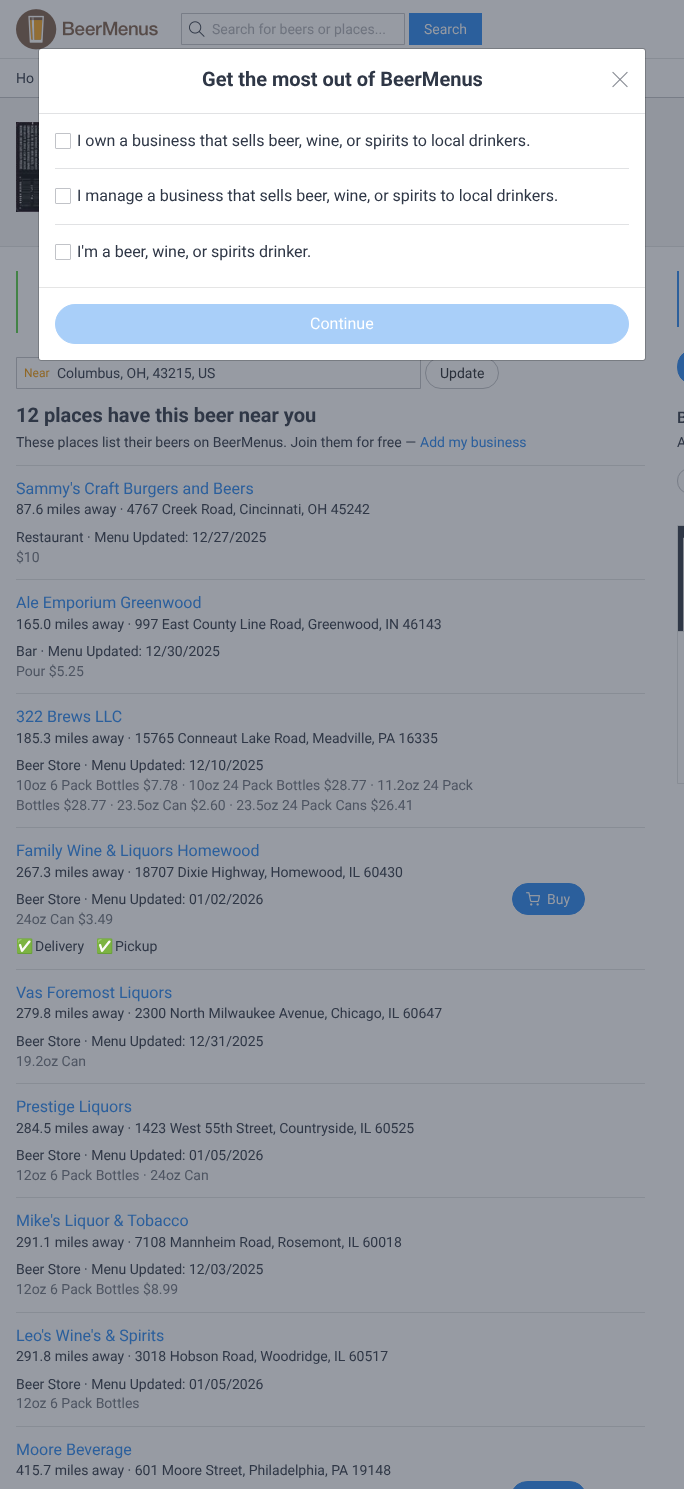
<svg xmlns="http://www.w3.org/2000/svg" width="684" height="1489">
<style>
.a{font:14px Roboto;fill:#6e737e}
.b{font:14px Roboto;fill:#979ba3}
.c{font:14px Roboto;fill:#2f3746}
.d{font:bold 20px Roboto;fill:#2f3746}
.e{font:16px Roboto;fill:#2f3746}
.f{font:16px Roboto;fill:#fff}
.g{font:12px Roboto;fill:#906725}
.h{font:14px Roboto;fill:#2a303b}
.i{font:14px Roboto;fill:#2b5f9c}
.j{font:16px Roboto;fill:#2b5f9c}
.k{font:14px Roboto;fill:#4e5562}
.l{font:14px Noto Color Emoji;fill:#2f3746}
.m{font:500 16px Roboto;fill:#2f3746}
</style>
<rect width="100%" height="100%" fill="#979ba3"/>
<path fill="#787d87" d="M0 97h684v1H0z"/>
<image href="1.png" x="16" y="9" width="142" height="41"/>
<path fill="none" stroke="#787d87" d="M181.5 13.5h223v31H181.5z"/>
<image href="2.png" x="189" y="21" width="16" height="16"/>
<path fill="#2b5f9c" d="M409 13h73v32H409z"/>
<path fill="#888d95" d="M0 58h684v1H0z"/>
<path fill="#92969e" d="M0 98h684v148H0z"/>
<path fill="#888d95" d="M0 246h684v1H0z"/>
<path fill="none" stroke="#787d87" d="M16.5 357.5h404v31H16.5z"/>
<rect fill="none" stroke="#787d87" x="425.5" y="357.5" width="73" height="31" rx="15.5"/>
<rect fill="#fff" x="39" y="49" width="606" height="311" rx="2"/>
<image href="4.png" x="16" y="122" width="23" height="90"/>
<rect fill="none" stroke="#00000033" x="38.5" y="48.5" width="607" height="312" rx="2.5"/>
<path fill="#e1e2e4" d="M39 113h606v1H39z"/>
<image href="3.png" x="612" y="71" width="16" height="17"/>
<rect fill="none" stroke="#c1c3c8" x="55.5" y="133.5" width="15" height="15" rx="0.5"/>
<path fill="#e1e2e4" d="M55 168h574v1H55z"/>
<rect fill="none" stroke="#c1c3c8" x="55.5" y="188.5" width="15" height="15" rx="0.5"/>
<path fill="#e1e2e4" d="M55 224h574v1H55z"/>
<rect fill="none" stroke="#c1c3c8" x="55.5" y="244.5" width="15" height="15" rx="0.5"/>
<path fill="#e5e5e5" d="M39 287h606v1H39z"/>
<rect fill="#a9cff9" stroke="#a9cff9" x="55.5" y="304.5" width="573" height="39" rx="19.5"/>
<path fill="#438346" d="M16 271h2v62H16z"/>
<path fill="#888d95" d="M16 465h629v1H16z"/>
<path fill="#888d95" d="M16 579h629v1H16z"/>
<path fill="#888d95" d="M16 693h629v1H16z"/>
<path fill="#888d95" d="M16 827h629v1H16z"/>
<rect fill="#2b5f9c" stroke="#2b5f9c" x="512.5" y="883.5" width="72" height="31" rx="15.5"/>
<image href="5.png" x="526" y="892" width="14" height="14"/>
<path fill="#888d95" d="M16 969h629v1H16z"/>
<path fill="#888d95" d="M16 1083h629v1H16z"/>
<path fill="#888d95" d="M16 1197h629v1H16z"/>
<path fill="#888d95" d="M16 1312h629v1H16z"/>
<path fill="#888d95" d="M16 1426h629v1H16z"/>
<rect fill="#2b5f9c" stroke="#2b5f9c" x="512.5" y="1481.5" width="72" height="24" rx="15.5"/>
<path fill="#2b5f9c" d="M677 271h2v56H677z"/>
<rect fill="#2b5f9c" stroke="#2b5f9c" x="677.5" y="351.5" width="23" height="31" rx="15.5"/>
<rect fill="none" stroke="#787d87" x="677.5" y="469.5" width="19" height="23" rx="11.5"/>
<path fill="none" stroke="#888d95" d="M677.5 525.5h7v258H677.5z"/>
<path fill="#2f3746" d="M678 526h6v106H678z"/>
<path fill="#888d95" d="M678 631h6v1H678z"/>
<image href="6.png" x="683" y="537" width="1" height="94"/>
<text class="a" x="212" y="34">Search for beers or places...</text>
<text class="b" x="424" y="34">Search</text>
<text class="c" x="16" y="83">Ho</text>
<text class="d" x="202" y="86">Get the most out of BeerMenus</text>
<text class="e" x="77" y="146">I own a business that sells beer, wine, or spirits to local drinkers.</text>
<text class="e" x="77" y="201">I manage a business that sells beer, wine, or spirits to local drinkers.</text>
<text class="e" x="77" y="257">I'm a beer, wine, or spirits drinker.</text>
<text class="f" x="310" y="329">Continue</text>
<text class="g" x="24" y="377">Near</text>
<text class="c" x="57" y="378">Columbus, OH, 43215, US</text>
<text class="h" x="440" y="378">Update</text>
<text class="d" x="16" y="422">12 places have this beer near you</text>
<text class="c" x="16" y="447">These places list their beers on BeerMenus. Join them for free —</text>
<text class="i" x="420" y="447">Add my business</text>
<text class="j" x="16" y="494">Sammy's Craft Burgers and Beers</text>
<text class="c" x="16" y="514">87.6 miles away · 4767 Creek Road, Cincinnati, OH 45242</text>
<text class="c" x="16" y="542">Restaurant · Menu Updated: 12/27/2025</text>
<text class="k" x="16" y="562">$10</text>
<text class="j" x="16" y="608">Ale Emporium Greenwood</text>
<text class="c" x="16" y="629">165.0 miles away · 997 East County Line Road, Greenwood, IN 46143</text>
<text class="c" x="16" y="656">Bar · Menu Updated: 12/30/2025</text>
<text class="k" x="16" y="676">Pour $5.25</text>
<text class="j" x="16" y="722">322 Brews LLC</text>
<text class="c" x="16" y="743">185.3 miles away · 15765 Conneaut Lake Road, Meadville, PA 16335</text>
<text class="c" x="16" y="770">Beer Store · Menu Updated: 12/10/2025</text>
<text class="k" x="16" y="790">10oz 6 Pack Bottles $7.78 · 10oz 24 Pack Bottles $28.77 · 11.2oz 24 Pack</text>
<text class="k" x="16" y="810">Bottles $28.77 · 23.5oz Can $2.60 · 23.5oz 24 Pack Cans $26.41</text>
<text class="j" x="16" y="856">Family Wine &amp; Liquors Homewood</text>
<text class="c" x="16" y="877">267.3 miles away · 18707 Dixie Highway, Homewood, IL 60430</text>
<text class="c" x="16" y="904">Beer Store · Menu Updated: 01/02/2026</text>
<text class="k" x="16" y="924">24oz Can $3.49</text>
<text class="l" x="16" y="951">✅</text>
<text class="c" x="35" y="951">Delivery</text>
<text class="l" x="96" y="951">✅</text>
<text class="c" x="115" y="951">Pickup</text>
<text class="b" x="547" y="904">Buy</text>
<text class="j" x="16" y="998">Vas Foremost Liquors</text>
<text class="c" x="16" y="1018">279.8 miles away · 2300 North Milwaukee Avenue, Chicago, IL 60647</text>
<text class="c" x="16" y="1046">Beer Store · Menu Updated: 12/31/2025</text>
<text class="k" x="16" y="1066">19.2oz Can</text>
<text class="j" x="16" y="1112">Prestige Liquors</text>
<text class="c" x="16" y="1133">284.5 miles away · 1423 West 55th Street, Countryside, IL 60525</text>
<text class="c" x="16" y="1160">Beer Store · Menu Updated: 01/05/2026</text>
<text class="k" x="16" y="1180">12oz 6 Pack Bottles · 24oz Can</text>
<text class="j" x="16" y="1226">Mike's Liquor &amp; Tobacco</text>
<text class="c" x="16" y="1247">291.1 miles away · 7108 Mannheim Road, Rosemont, IL 60018</text>
<text class="c" x="16" y="1274">Beer Store · Menu Updated: 12/03/2025</text>
<text class="k" x="16" y="1294">12oz 6 Pack Bottles $8.99</text>
<text class="j" x="16" y="1341">Leo's Wine's &amp; Spirits</text>
<text class="c" x="16" y="1361">291.8 miles away · 3018 Hobson Road, Woodridge, IL 60517</text>
<text class="c" x="16" y="1389">Beer Store · Menu Updated: 01/05/2026</text>
<text class="k" x="16" y="1408">12oz 6 Pack Bottles</text>
<text class="j" x="16" y="1455">Moore Beverage</text>
<text class="c" x="16" y="1475">415.7 miles away · 601 Moore Street, Philadelphia, PA 19148</text>
<text class="m" x="677" y="423">B</text>
<text class="c" x="677" y="447">A</text>
</svg>
